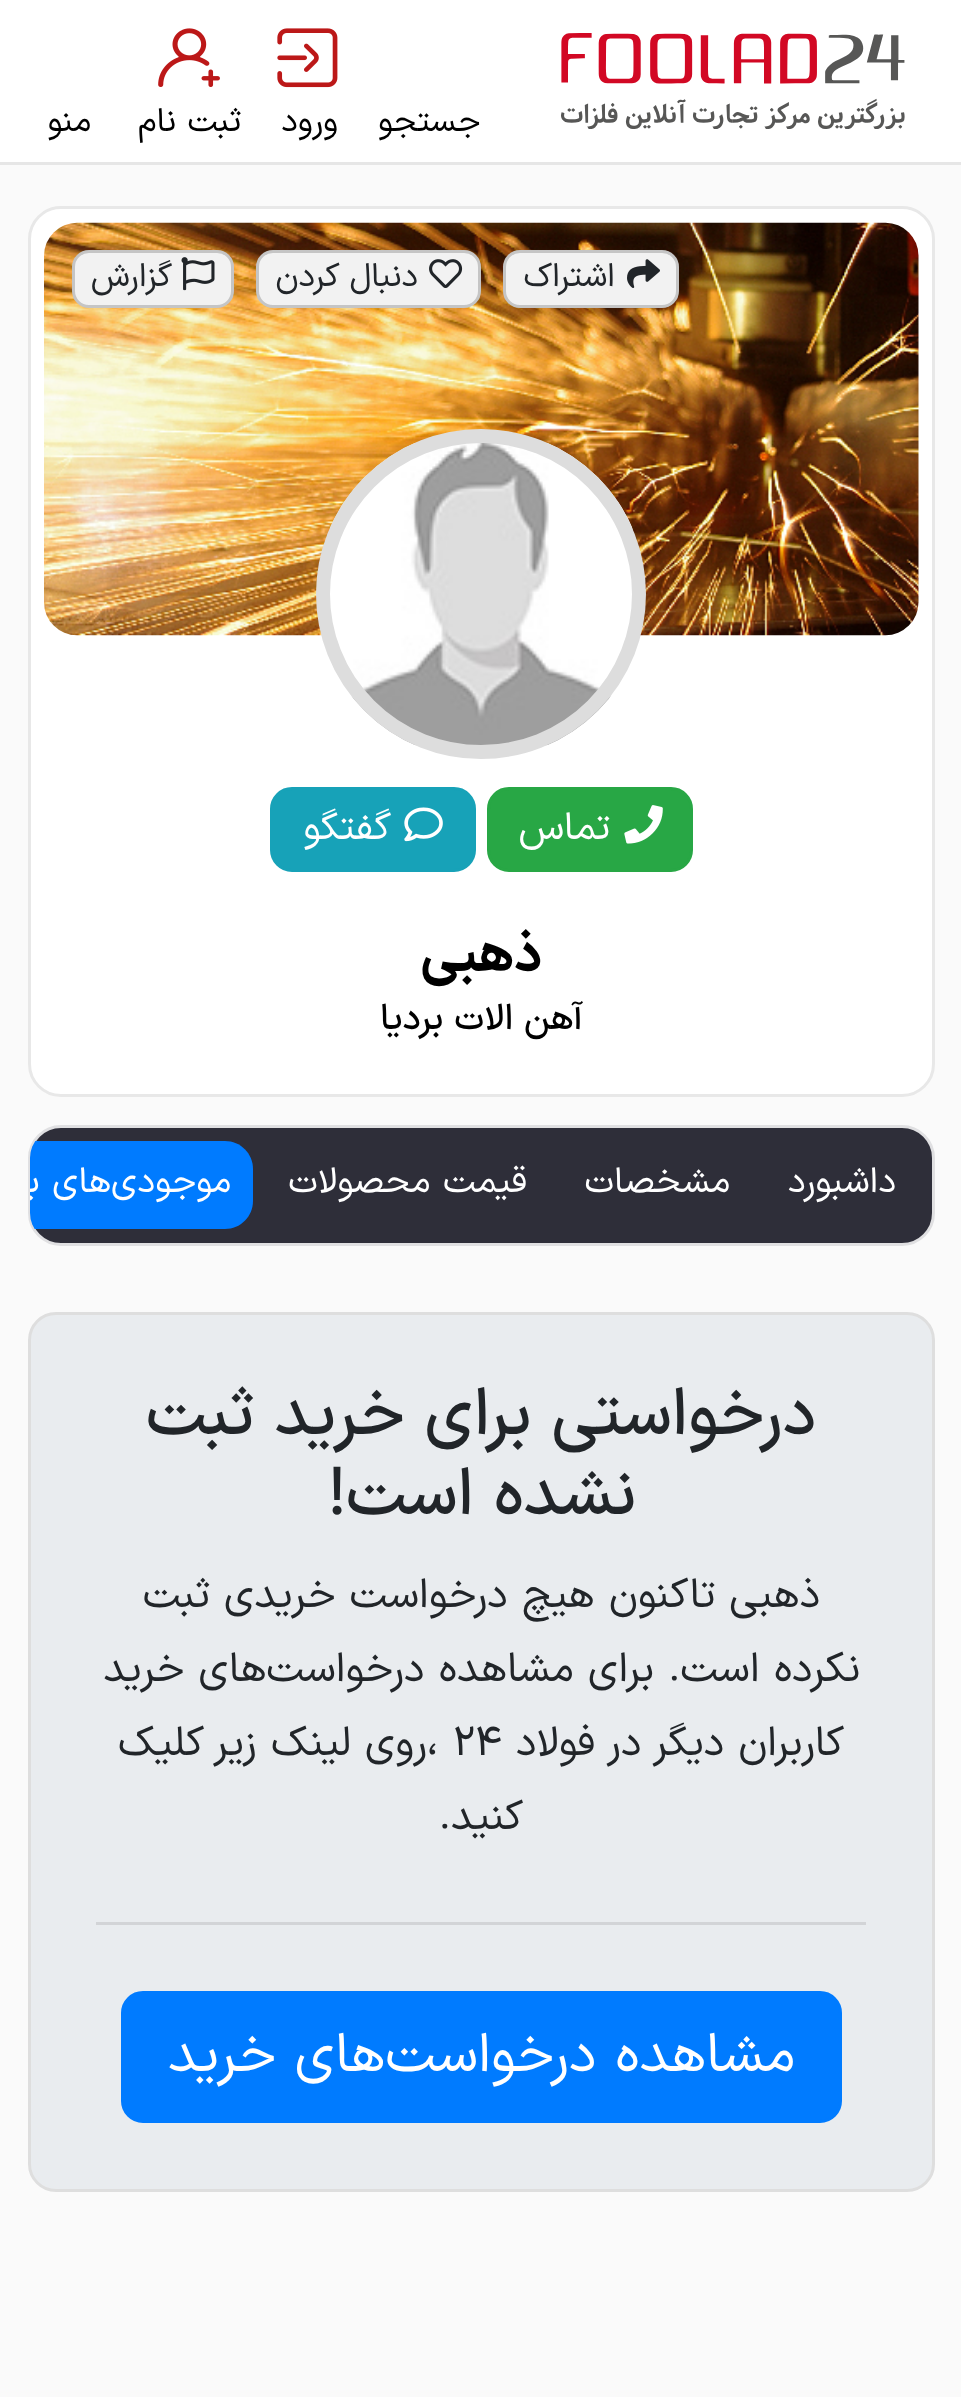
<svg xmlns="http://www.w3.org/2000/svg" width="961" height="2397">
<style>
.a{font:33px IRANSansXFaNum;direction:rtl;fill:#000}
.b{font:33px IRANSansXFaNum;direction:rtl;fill:#212529}
.c{font:38.5px IRANSansXFaNum;direction:rtl;fill:#fff}
.d{font:bold 53px IRANSansXFaNum;direction:rtl;fill:#000}
.e{font:500 35.75px IRANSansXFaNum;direction:rtl;fill:#000}
.f{font:35.75px IRANSansXFaNum;direction:rtl;fill:#fff}
.g{font:500 66px IRANSansXFaNum;direction:rtl;fill:#212529}
.h{font:41.25px IRANSansXFaNum;direction:rtl;fill:#212529}
.i{font:41.25px IRANSansXFaNum;fill:#212529}
.j{font:55px IRANSansXFaNum;direction:rtl;fill:#fff}
</style>
<defs>
<clipPath id="clip1"><rect x="30" y="1128" width="902" height="115" rx="30"/></clipPath>
</defs>
<rect width="100%" height="100%" fill="#fafafa"/>
<path fill="#fff" d="M0 0h961v162H0z"/>
<path fill="#e6e6e6" d="M0 162h961v3H0z"/>
<image href="1.png" x="561" y="33" width="344" height="96"/>
<image href="2.png" x="277" y="28" width="61" height="60"/>
<image href="3.png" x="158" y="28" width="62" height="59"/>
<rect fill="#fff" stroke="#e8e8e8" stroke-width="3" x="29.5" y="207.5" width="904" height="888" rx="31.5"/>
<image href="4.png" x="44" y="222" width="875" height="414"/>
<rect fill="#f2f2f2" stroke="#c5c5c5" stroke-width="3" x="504.5" y="251.5" width="173" height="55" rx="15.5"/>
<image href="5.png" x="627" y="259" width="33" height="29"/>
<rect fill="#f2f2f2" stroke="#c5c5c5" stroke-width="3" x="257.5" y="251.5" width="222" height="55" rx="15.5"/>
<image href="6.png" x="429" y="259" width="34" height="29"/>
<rect fill="#f2f2f2" stroke="#c5c5c5" stroke-width="3" x="73.5" y="251.5" width="159" height="55" rx="15.5"/>
<image href="7.png" x="181" y="257" width="34" height="34"/>
<image href="8.png" x="330" y="442" width="303" height="304"/>
<circle fill="none" stroke="#ddd" stroke-width="14" cx="481" cy="594" r="158"/>
<rect fill="#28a745" stroke="#28a745" stroke-width="3" x="488.5" y="788.5" width="203" height="82" rx="20.5"/>
<image href="9.png" x="624" y="805" width="39" height="39"/>
<rect fill="#17a2b8" stroke="#17a2b8" stroke-width="3" x="271.5" y="788.5" width="203" height="82" rx="20.5"/>
<image href="10.png" x="404" y="807" width="39" height="35"/>
<rect fill="#2e2e39" stroke="#e0e0e2" stroke-width="3" x="29.5" y="1126.5" width="904" height="118" rx="31.5"/>
<g clip-path="url(#clip1)">
<path fill="#007bff" d="M30 1141h195c15.5 0 28 12.5 28 28v32c0 15.5-12.5 28-28 28h-195z"/>
</g>
<rect fill="#e9ecef" stroke="#dedede" stroke-width="3" x="29.5" y="1313.5" width="904" height="877" rx="26.5"/>
<path fill="#d2d4d7" d="M96 1922h770v3H96z"/>
<rect fill="#007bff" stroke="#007bff" stroke-width="3" x="122.5" y="1992.5" width="718" height="129" rx="20.5"/>
<text class="a" x="480" y="131">جستجو</text>
<text class="a" x="338" y="131">ورود</text>
<text class="a" x="241" y="131">ثبت نام</text>
<text class="a" x="91" y="131">منو</text>
<text class="b" x="615" y="286">اشتراک</text>
<text class="b" x="418" y="286">دنبال کردن</text>
<text class="b" x="172" y="286">گزارش</text>
<text class="c" x="610" y="839">تماس</text>
<text class="c" x="391" y="839">گفتگو</text>
<text class="d" x="542" y="971">ذهبی</text>
<text class="e" x="583" y="1029">آهن الات بردیا</text>
<text class="f" x="896" y="1192">داشبورد</text>
<text class="f" x="730" y="1192">مشخصات</text>
<text class="f" x="527" y="1192">قیمت محصولات</text>
<g clip-path="url(#clip1)">
<text class="f" x="231" y="1192">موجودی‌های بار</text>
</g>
<text class="g" x="816" y="1434">درخواستی برای خرید ثبت</text>
<text class="g" x="636" y="1514">نشده است!</text>
<text class="h" x="820" y="1607">ذهبی</text>
<text class="h" x="715" y="1607">تاکنون هیچ درخواست خریدی ثبت</text>
<text class="h" x="860" y="1681">نکرده است. برای مشاهده درخواست‌های خرید</text>
<text class="h" x="844" y="1755">کاربران دیگر در فولاد</text>
<text class="i" x="427" y="1755">، ۲۴</text>
<text class="h" x="427" y="1755">روی لینک زیر کلیک</text>
<text class="h" x="523" y="1829">کنید.</text>
<text class="j" x="795" y="2071">مشاهده درخواست‌های خرید</text>
</svg>
